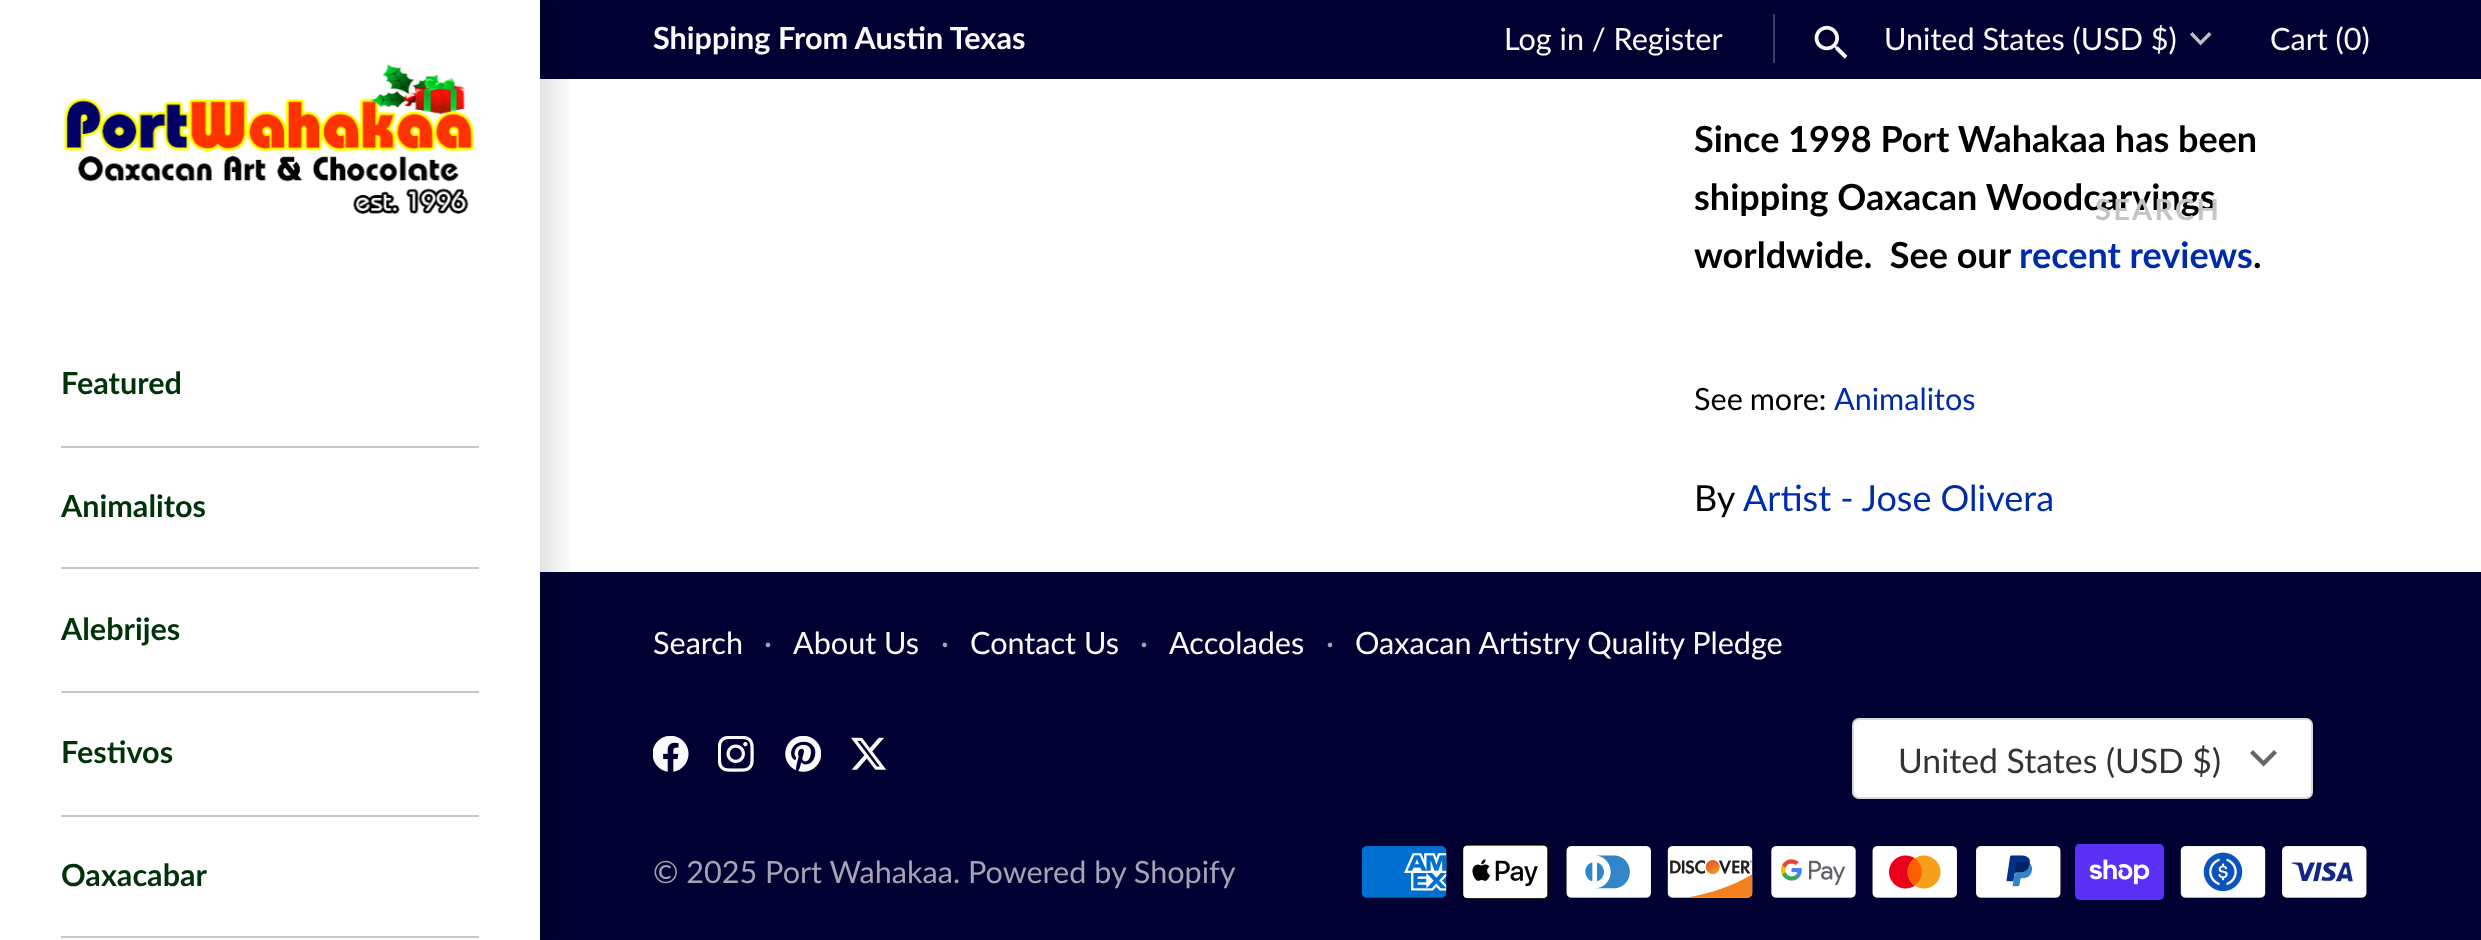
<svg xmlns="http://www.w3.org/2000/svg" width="2481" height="940">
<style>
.a{font:bold 30.6px Lato;fill:#fafafa}
.b{font:30.6px Lato;fill:#fafafa}
.c{font:bold 30.6px Lato;fill:#003308}
.d{font:bold 36px Lato;fill:#000}
.e{font:bold 29px Lato;letter-spacing:2.25px;fill:#c4c4c4}
.f{font:bold 36px Lato;fill:#002ca9}
.g{font:30.6px Lato;fill:#000}
.h{font:30.6px Lato;fill:#002ca9}
.i{font:36px Lato;fill:#000}
.j{font:36px Lato;fill:#002ca9}
.k{font:30.6px Lato;fill:#a3a3b4}
.l{font:33.75px Lato;fill:#333}
</style>
<defs>
<clipPath id="clip1"><path d="M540 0h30v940H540z"/></clipPath>
</defs>
<rect width="100%" height="100%" fill="#fff"/>
<path fill="#003" d="M540 0h1941v79H540z"/>
<path fill="#3f3f65" d="M1773 14h2v49H1773z"/>
<image href="1.png" x="1814" y="25" width="34" height="34"/>
<path fill="#bcbcc8" d="M2192.5 32l8 8.5l8.5-8.5l2.5 2.5l-11 11l-10.5-11z"/>
<path fill="#003" d="M540 572h1941v368H540z"/>
<g clip-path="url(#clip1)">
<path fill="#00000026" filter="blur(17px)" d="M-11 -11h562v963H-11z"/>
</g>
<image href="2.png" x="63" y="64" width="412" height="150"/>
<path fill="#bfccc1" d="M61 446h418v2H61z"/>
<path fill="#bfccc1" d="M61 567h418v2H61z"/>
<path fill="#bfccc1" d="M61 691h418v2H61z"/>
<path fill="#bfccc1" d="M61 815h418v2H61z"/>
<path fill="#bfccc1" d="M61 936h418v2H61z"/>
<image href="3.png" x="653" y="736" width="36" height="36"/>
<image href="4.png" x="718" y="736" width="36" height="36"/>
<image href="5.png" x="785" y="736" width="36" height="36"/>
<image href="6.png" x="851" y="737" width="36" height="33"/>
<rect fill="#fff" x="1852" y="718" width="461" height="81" rx="7"/>
<rect fill="none" stroke="#00000026" stroke-width="2" x="1853" y="719" width="459" height="79" rx="6"/>
<path fill="#666" d="M2253 750l10.5 10.5l10.5-10.5l3 3l-13.5 13.5l-13.5-13.5z"/>
<image href="7.png" x="1361" y="846" width="86" height="52"/>
<image href="8.png" x="1461" y="844" width="89" height="56"/>
<image href="9.png" x="1566" y="846" width="85" height="52"/>
<image href="10.png" x="1667" y="846" width="86" height="52"/>
<image href="11.png" x="1771" y="846" width="85" height="52"/>
<image href="12.png" x="1872" y="846" width="85" height="52"/>
<image href="13.png" x="1976" y="846" width="85" height="52"/>
<image href="14.png" x="2075" y="844" width="90" height="56"/>
<image href="15.png" x="2180" y="846" width="86" height="52"/>
<image href="16.png" x="2282" y="846" width="85" height="52"/>
<text class="a" x="653" y="49">Shipping From Austin Texas</text>
<text class="b" x="1504" y="50">Log in / Register</text>
<text class="b" x="1884" y="50">United States (USD $)</text>
<text class="b" x="2270" y="50">Cart (0)</text>
<text class="c" x="61" y="394">Featured</text>
<text class="c" x="61" y="517">Animalitos</text>
<text class="c" x="61" y="640">Alebrijes</text>
<text class="c" x="61" y="763">Festivos</text>
<text class="c" x="61" y="886">Oaxacabar</text>
<text class="d" x="1694" y="152">Since 1998 Port Wahakaa has been</text>
<text class="d" x="1694" y="210">shipping Oaxacan Woodcarvings</text>
<text class="e" x="2095" y="220">SEARCH</text>
<text class="d" xml:space="preserve" x="1694" y="268">worldwide.  See our</text>
<text class="f" x="2019" y="268">recent reviews</text>
<text class="d" x="2253" y="268">.</text>
<text class="g" x="1694" y="410" word-spacing="-1">See more:</text>
<text class="h" x="1834" y="410">Animalitos</text>
<text class="i" x="1694" y="511">By</text>
<text class="j" x="1743" y="511">Artist - Jose Olivera</text>
<text class="b" x="653" y="654">Search</text>
<text class="k" x="764" y="654">·</text>
<text class="b" x="793" y="654">About Us</text>
<text class="k" x="941" y="654">·</text>
<text class="b" x="970" y="654">Contact Us</text>
<text class="k" x="1140" y="654">·</text>
<text class="b" x="1169" y="654">Accolades</text>
<text class="k" x="1326" y="654">·</text>
<text class="b" x="1355" y="654">Oaxacan Artistry Quality Pledge</text>
<text class="l" x="1898" y="773">United States (USD $)</text>
<text class="k" x="653" y="883">© 2025 Port Wahakaa. Powered by Shopify</text>
</svg>
